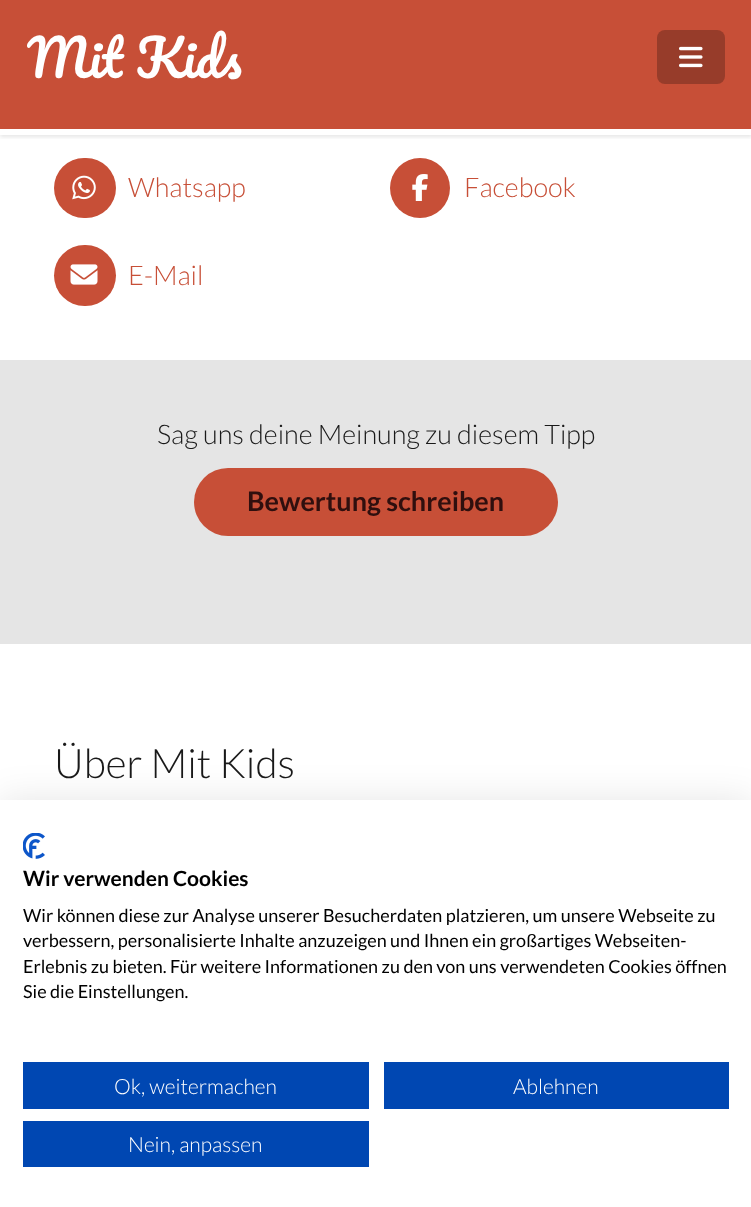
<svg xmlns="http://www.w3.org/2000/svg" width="751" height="1207">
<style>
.a{font:50.5px Pacifico;fill:#fff}
.b{font:300 27px Lato;fill:#c74f37}
.c{font:300 27px Lato;fill:#191919}
.d{font:bold 27px Lato;fill:#2f0f0e}
.e{font:300 40.5px Lato;fill:#191919}
.f{font:bold 21px Lato;fill:#000}
.g{font:18px Lato;fill:#000}
.h{font:300 21px Lato;fill:#fff}
</style>
<defs>
<clipPath id="clip1"><path d="M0 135h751v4H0z"/></clipPath>
</defs>
<rect width="100%" height="100%" fill="#fff"/>
<g clip-path="url(#clip1)">
<path fill="#0000001a" filter="blur(2px)" d="M0 2h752v135H0z"/>
</g>
<path fill="#c74f37" d="M0 0h751v129H0z"/>
<rect fill="#973c2a" x="657" y="30" width="68" height="54" rx="8"/>
<image href="1.png" x="679" y="46" width="24" height="22"/>
<path fill="#e5e5e5" d="M0 360h751v284H0z"/>
<rect fill="#c74f37" x="54" y="158" width="62" height="60" rx="30"/>
<image href="2.png" x="72" y="175" width="24" height="25"/>
<circle fill="#c74f37" cx="420" cy="188" r="30"/>
<image href="3.png" x="412" y="174" width="16" height="27"/>
<rect fill="#c74f37" x="54" y="245" width="62" height="61" rx="30.5"/>
<image href="4.png" x="70" y="264" width="28" height="21"/>
<rect fill="#c74f37" x="194" y="468" width="364" height="68" rx="34"/>
<path fill="#0000001a" filter="blur(18px)" d="M0 800h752v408H0z"/>
<path fill="#fff" d="M0 800h751v407H0z"/>
<image href="5.png" x="23" y="833" width="22" height="26"/>
<path fill="#0047b2" d="M23 1062h346v47H23z"/>
<path fill="#0047b2" d="M384 1062h345v47H384z"/>
<path fill="#0047b2" d="M23 1121h346v46H23z"/>
<text class="a" x="27" y="78">Mit Kids</text>
<text class="b" x="128" y="197">Whatsapp</text>
<text class="b" x="464" y="197">Facebook</text>
<text class="b" x="128" y="285">E-Mail</text>
<text class="c" x="157" y="444">Sag uns deine Meinung zu diesem Tipp</text>
<text class="d" x="247" y="511">Bewertung schreiben</text>
<text class="e" x="54" y="778">Über Mit Kids</text>
<text class="f" x="23" y="886">Wir verwenden Cookies</text>
<text class="g" x="23" y="922">Wir können diese zur Analyse unserer Besucherdaten platzieren, um unsere Webseite zu</text>
<text class="g" x="23" y="947">verbessern, personalisierte Inhalte anzuzeigen und Ihnen ein großartiges Webseiten-</text>
<text class="g" x="23" y="973">Erlebnis zu bieten. Für weitere Informationen zu den von uns verwendeten Cookies öffnen</text>
<text class="g" x="23" y="998">Sie die Einstellungen.</text>
<text class="h" x="114" y="1094">Ok, weitermachen</text>
<text class="h" x="513" y="1094">Ablehnen</text>
<text class="h" x="128" y="1152">Nein, anpassen</text>
</svg>
